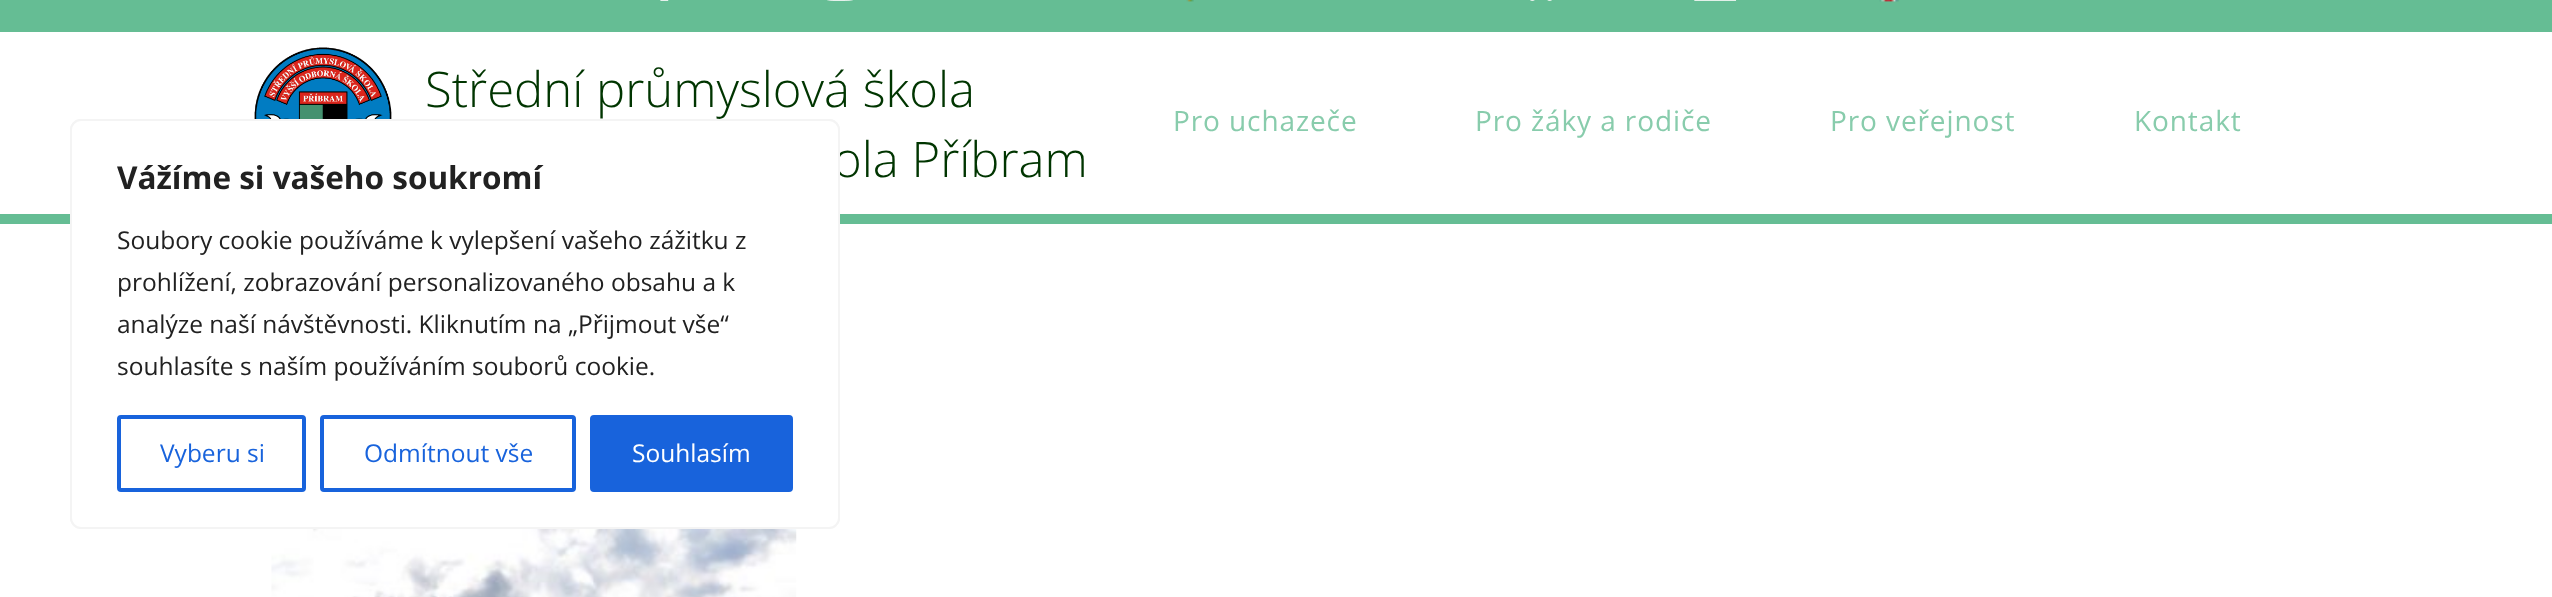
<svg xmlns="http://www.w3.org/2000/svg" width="2552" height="597">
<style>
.a{font:300 49px Open Sans;fill:#003500}
.b{font:28px Open Sans;letter-spacing:0.9px;fill:#88ccac}
.c{font:bold 31.5px Open Sans;fill:#212121}
.d{font:24.5px Open Sans;fill:#212121}
.e{font:24.5px Open Sans;fill:#1863dc}
.f{font:24.5px Open Sans;fill:#fff}
</style>
<defs>
<clipPath id="clip1"><rect x="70" y="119" width="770" height="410" rx="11"/></clipPath>
</defs>
<rect width="100%" height="100%" fill="#fff"/>
<path fill="#65bd94" d="M0 0h2552v32H0z"/>
<image href="1.png" x="660" y="0" width="9" height="1"/>
<image href="2.png" x="827" y="0" width="26" height="1"/>
<image href="3.png" x="1186" y="0" width="8" height="2"/>
<image href="4.png" x="1530" y="0" width="22" height="1"/>
<image href="5.png" x="1694" y="0" width="43" height="1"/>
<image href="6.png" x="1879" y="0" width="20" height="2"/>
<path fill="#65bd94" d="M0 214h2552v10H0z"/>
<image href="7.png" x="254" y="47" width="138" height="72"/>
<image href="8.png" x="271" y="529" width="526" height="68"/>
<g clip-path="url(#clip1)">
<rect fill="#acabab4d" filter="blur(9px)" x="70" y="117" width="770" height="410" rx="11"/>
</g>
<text class="a" x="425" y="107">Střední průmyslová škola</text>
<text class="a" x="833" y="177">ola Příbram</text>
<text class="b" x="1173" y="131">Pro uchazeče</text>
<text class="b" x="1475" y="131">Pro žáky a rodiče</text>
<text class="b" x="1830" y="131">Pro veřejnost</text>
<text class="b" x="2134" y="131">Kontakt</text>
<rect fill="#fff" stroke="#f4f4f4" stroke-width="2" x="71" y="120" width="768" height="408" rx="10"/>
<text class="c" x="117" y="189">Vážíme si vašeho soukromí</text>
<text class="d" x="117" y="249">Soubory cookie používáme k vylepšení vašeho zážitku z</text>
<text class="d" x="117" y="291">prohlížení, zobrazování personalizovaného obsahu a k</text>
<text class="d" x="117" y="333">analýze naší návštěvnosti. Kliknutím na „Přijmout vše“</text>
<text class="d" x="117" y="375">souhlasíte s naším používáním souborů cookie.</text>
<rect fill="none" stroke="#1863dc" stroke-width="4" x="119" y="417" width="185" height="73" rx="2"/>
<text class="e" x="160" y="462">Vyberu si</text>
<rect fill="none" stroke="#1863dc" stroke-width="4" x="322" y="417" width="252" height="73" rx="2"/>
<text class="e" x="364" y="462">Odmítnout vše</text>
<rect fill="#1863dc" stroke="#1863dc" stroke-width="4" x="592" y="417" width="199" height="73" rx="2"/>
<text class="f" x="632" y="462">Souhlasím</text>
</svg>
